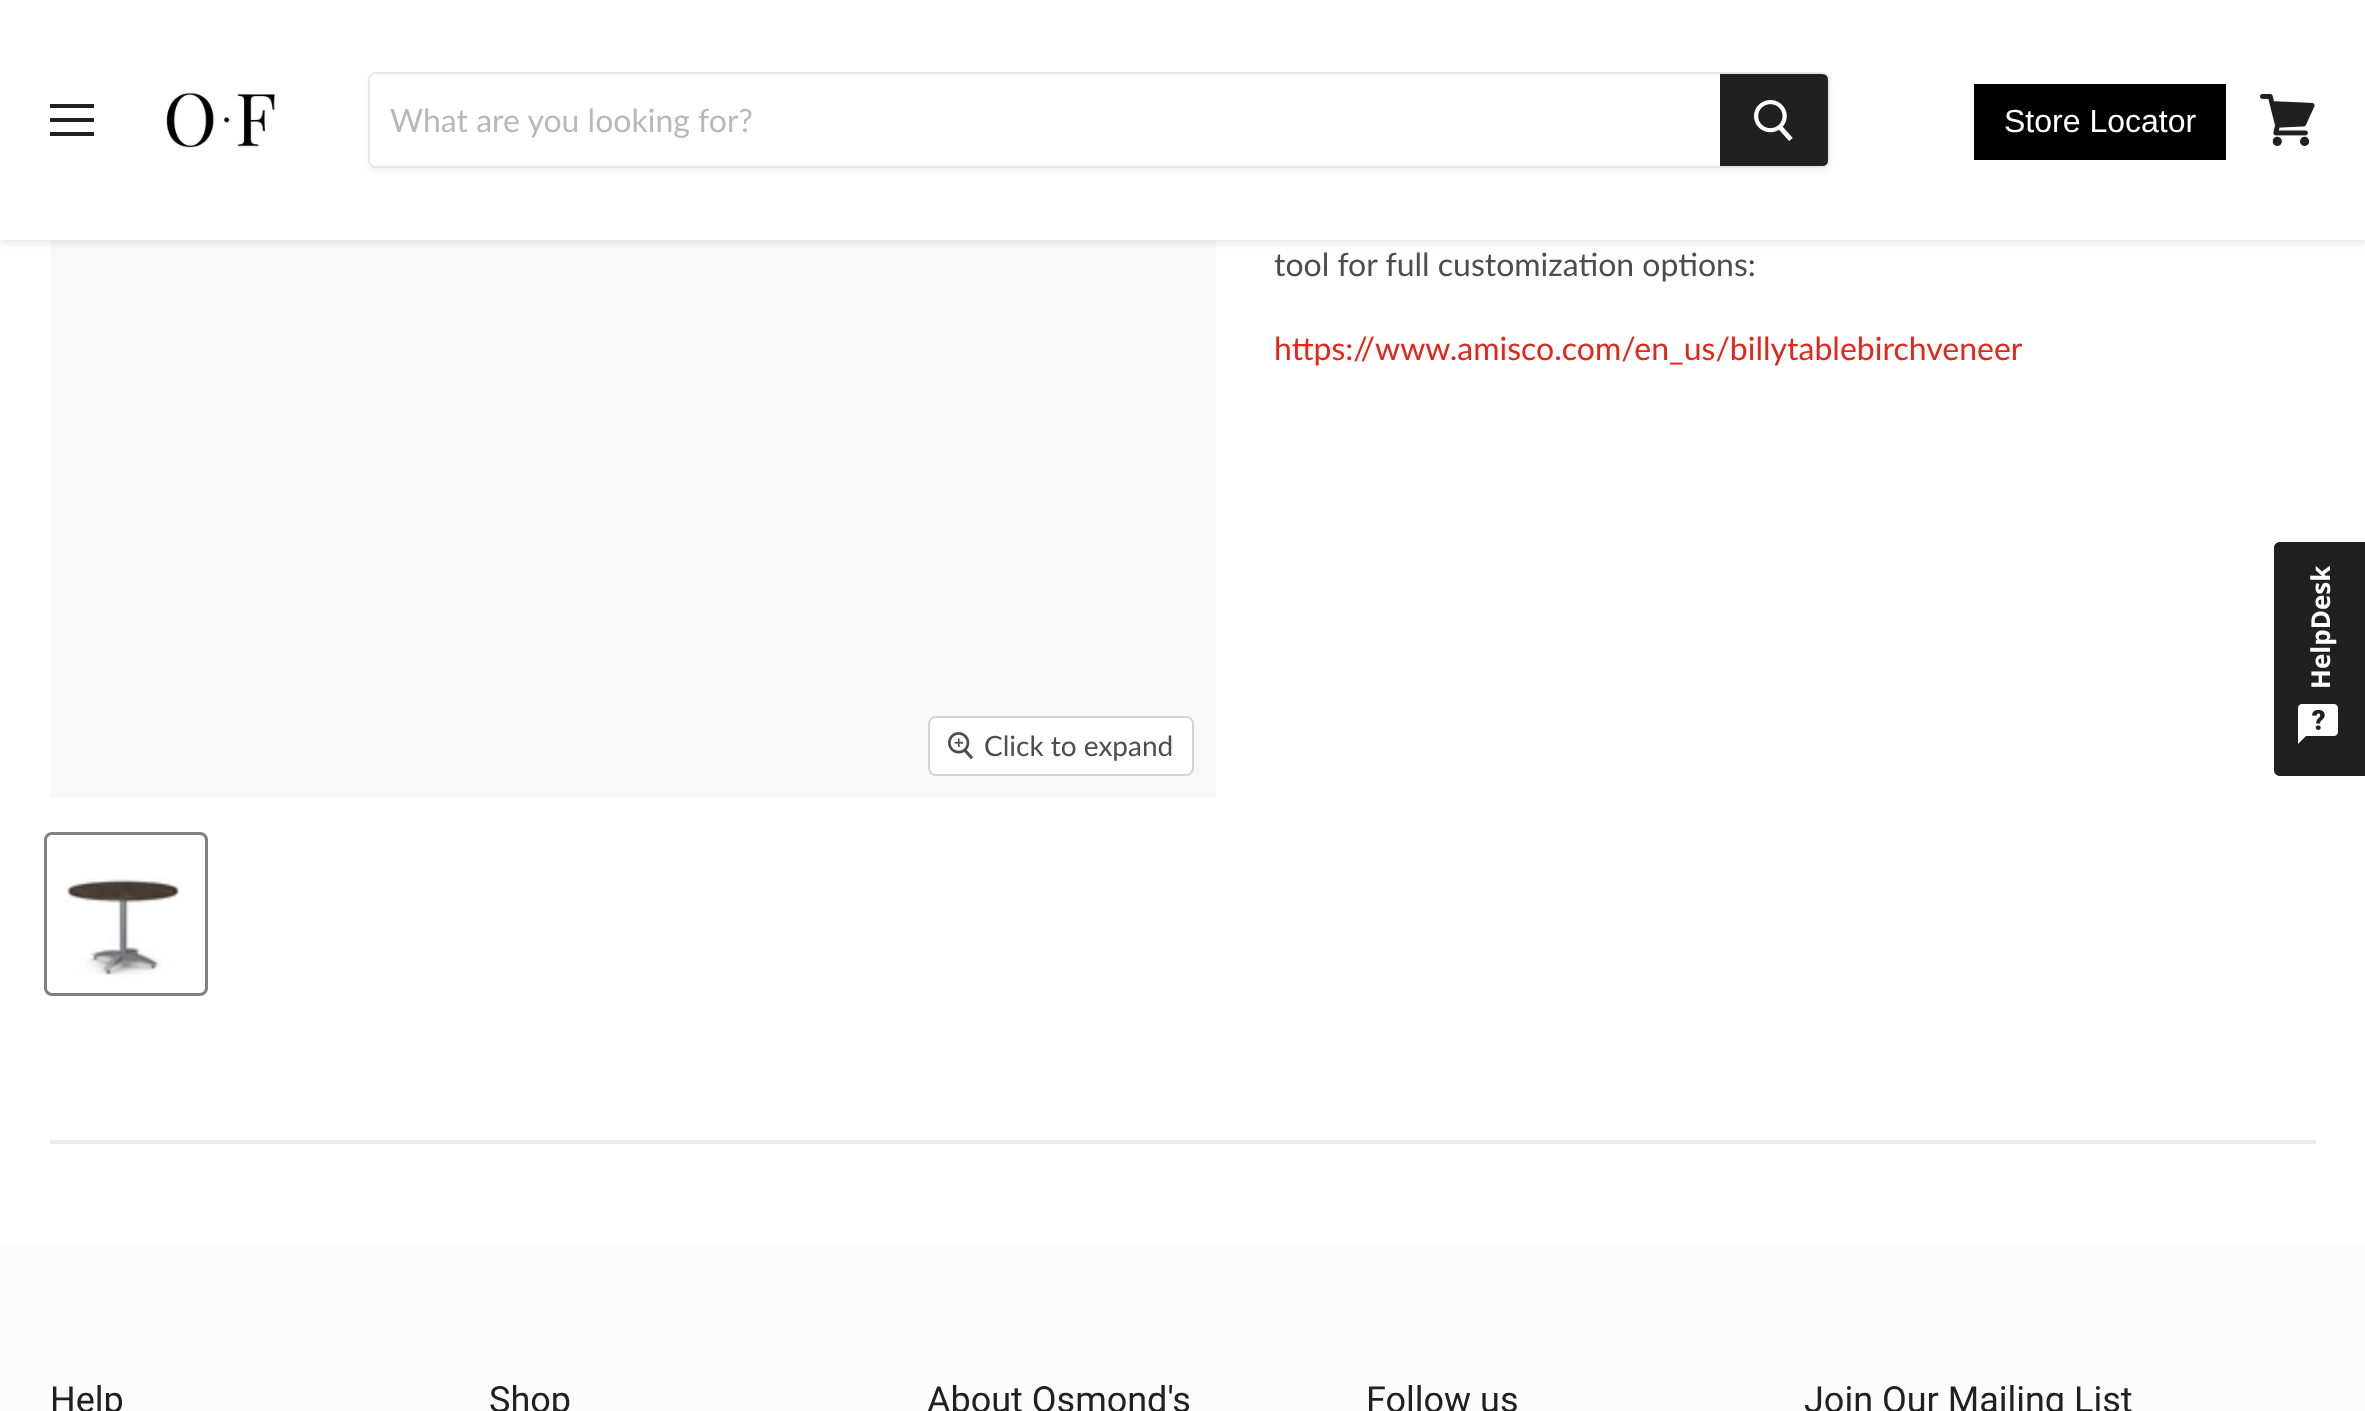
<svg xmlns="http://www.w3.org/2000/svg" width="2365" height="1411">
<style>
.a{font:32px Lato;fill:#b8b8b8}
.b{font:32px Liberation Sans;fill:#fff}
.c{font:32px Lato;fill:#4d4d4d}
.d{font:32px Lato;fill:#e32619}
.e{font:28px Lato;fill:#4d4d4d}
.f{font:bold 26px Open Sans;fill:#fff}
.g{font:36px Roboto;fill:#202020}
</style>
<defs>
<clipPath id="clip1"><path d="M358 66h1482v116h-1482zm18 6h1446c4.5 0 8 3.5 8 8v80c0 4.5-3.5 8-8 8h-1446c-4.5 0-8-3.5-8-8v-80c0-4.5 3.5-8 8-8z" clip-rule="evenodd"/></clipPath>
</defs>
<rect width="100%" height="100%" fill="#fff"/>
<path fill="#f8f8f8" d="M50 240h1166v558H50z"/>
<path fill="#80808040" filter="blur(4px)" d="M0 2h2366v240H0z"/>
<path fill="#fff" d="M0 0h2365v240H0z"/>
<path fill="#202020" d="M50 104h44v4H50z"/>
<path fill="#202020" d="M50 118h44v4H50z"/>
<path fill="#202020" d="M50 132h44v4H50z"/>
<image href="1.png" x="166" y="91" width="110" height="57"/>
<g clip-path="url(#clip1)">
<rect fill="#8080801c" filter="blur(3px)" x="368" y="76" width="1462" height="96" rx="8"/>
</g>
<rect fill="none" stroke="#80808033" stroke-width="2" x="369" y="73" width="1460" height="94" rx="7"/>
<path fill="#fff" d="M376 74h1344v92h-1344c-3.5 0-6-2.5-6-6v-80c0-3.5 2.5-6 6-6z"/>
<path fill="#202020" stroke="#202020" stroke-width="2" d="M1721 75h101c3 0 5 2 5 5v80c0 3-2 5-5 5h-101z"/>
<image href="2.png" x="1754" y="100" width="39" height="41"/>
<path fill="#000" d="M1974 84h252v76H1974z"/>
<image href="3.png" x="2260" y="94" width="55" height="52"/>
<rect fill="none" stroke="#d3d3d3" stroke-width="2" x="929" y="717" width="264" height="58" rx="7"/>
<rect fill="#ffffffe6" x="930" y="718" width="262" height="56" rx="6"/>
<image href="4.png" x="948" y="732" width="26" height="28"/>
<rect fill="none" stroke="#818181" stroke-width="3" x="45.5" y="833.5" width="161" height="161" rx="6.5"/>
<image href="5.png" x="66" y="878" width="113" height="99"/>
<path fill="#ebebeb" d="M50 1140h2266v4H50z"/>
<path fill="#202020" d="M2280 542h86v234h-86c-3.5 0-6-2.5-6-6v-222c0-3.5 2.5-6 6-6z"/>
<image href="6.png" x="2298" y="704" width="40" height="40"/>
<path fill="#fcfcfc" d="M0 1244h2365v167H0z"/>
<text class="a" x="390" y="132">What are you looking for?</text>
<text class="b" x="2004" y="132">Store Locator</text>
<text class="c" x="1274" y="276">tool for full customization options:</text>
<text class="d" x="1274" y="360">https://www.amisco.com/en_us/billytablebirchveneer</text>
<text class="e" x="984" y="756">Click to expand</text>
<text class="f" x="2330" y="689" transform="rotate(-90 2330 689)">HelpDesk</text>
<text class="g" x="50" y="1412">Help</text>
<text class="g" x="489" y="1412">Shop</text>
<text class="g" x="927" y="1412">About Osmond's</text>
<text class="g" x="1366" y="1412">Follow us</text>
<text class="g" x="1804" y="1412">Join Our Mailing List</text>
</svg>
